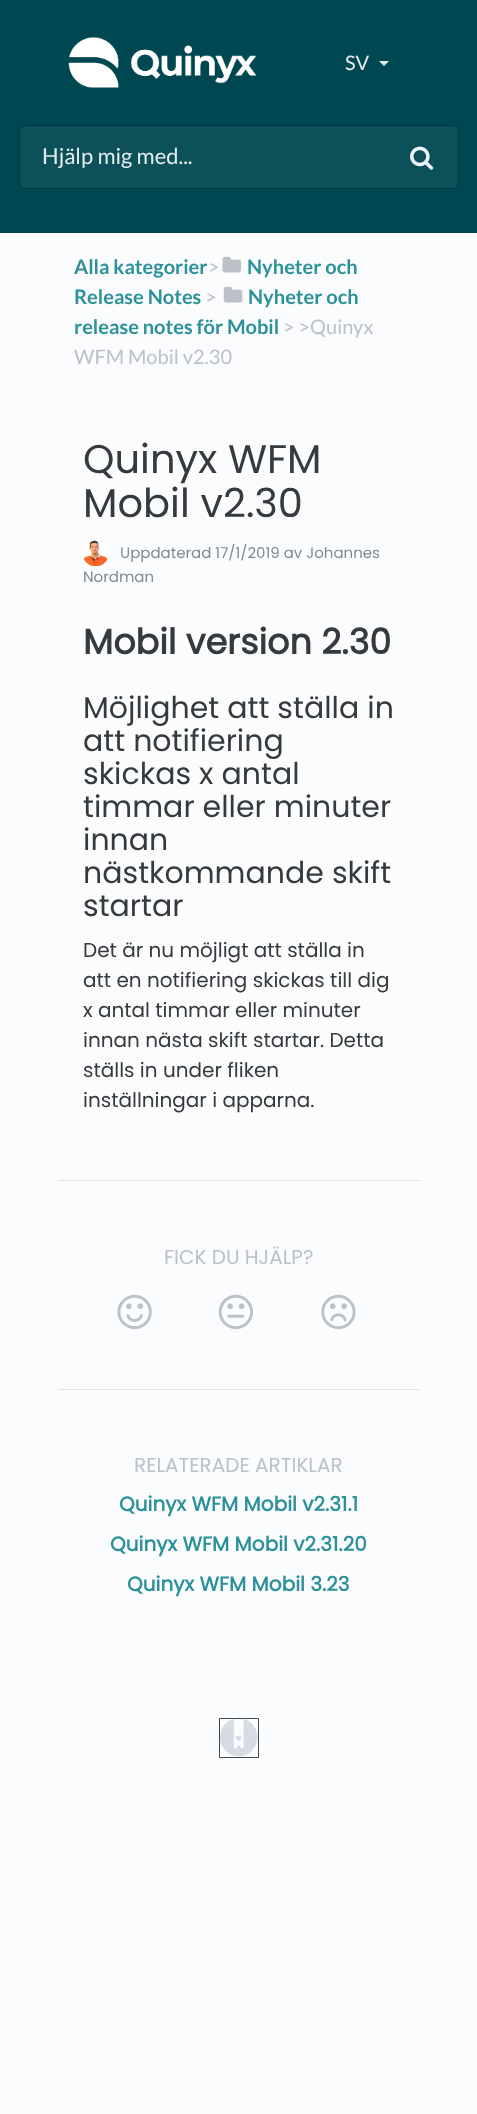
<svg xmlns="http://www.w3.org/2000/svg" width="477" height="2114">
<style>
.a{font:20px Lato;fill:#e5eced}
.b{font:22px Lato;fill:#e5eced}
.c{font:bold 20px Lato;fill:#2c9199}
.d{font:20px Lato;fill:#bcc0c8}
.e{font:40px Poppins;fill:#373a3c}
.f{font:15px Poppins;fill:#818a91}
.g{font:bold 35px Poppins;fill:#373a3c}
.h{font:30px Poppins;fill:#373a3c}
.i{font:20px Poppins;fill:#373a3c}
.j{font:20px Poppins;fill:#bcc0c8}
.k{font:bold 20px Poppins;fill:#2c9199}
</style>
<rect width="100%" height="100%" fill="#fbfcfe"/>
<path fill="#004851" d="M0 0h477v233H0z"/>
<image href="1.png" x="68" y="37" width="189" height="51"/>
<path fill="#e5eced" d="M379 61h10l-5 5z"/>
<rect fill="#0c5159" stroke="#00383f" x="19.5" y="125.5" width="439" height="63" rx="5.5"/>
<image href="2.png" x="410" y="146" width="24" height="24"/>
<image href="3.png" x="222" y="256" width="20" height="17"/>
<image href="4.png" x="223" y="286" width="20" height="17"/>
<image href="5.png" x="83" y="540" width="25" height="27"/>
<path fill="#e2e3e5" d="M58 1180h362v1H58z"/>
<image href="6.png" x="117" y="1294" width="35" height="36"/>
<image href="7.png" x="218" y="1294" width="35" height="36"/>
<image href="8.png" x="321" y="1294" width="35" height="36"/>
<path fill="#e2e3e5" d="M58 1389h362v1H58z"/>
<path fill="none" stroke="#41494d" d="M219.5 1718.5h39v39H219.5z"/>
<image href="9.png" x="220" y="1718" width="38" height="39"/>
<text class="a" x="345" y="70">SV</text>
<text class="b" x="42" y="164">Hjälp mig med...</text>
<text class="c" x="74" y="274">Alla kategorier</text>
<text class="c" x="247" y="274">Nyheter och</text>
<text class="c" x="74" y="304">Release Notes</text>
<text class="d" x="208" y="274">&gt;</text>
<text class="c" x="248" y="304">Nyheter och</text>
<text class="c" x="74" y="334">release notes för Mobil</text>
<text class="d" x="205" y="304">&gt;</text>
<text class="d" x="283" y="334">&gt; &gt;Quinyx</text>
<text class="d" x="74" y="364">WFM Mobil v2.30</text>
<text class="e" x="83" y="473">Quinyx WFM</text>
<text class="e" x="83" y="517">Mobil v2.30</text>
<text class="f" x="120" y="558">Uppdaterad 17/1/2019 av Johannes</text>
<text class="f" x="83" y="582">Nordman</text>
<text class="g" x="83" y="654">Mobil version 2.30</text>
<text class="h" x="83" y="718">Möjlighet att ställa in</text>
<text class="h" x="83" y="751">att notifiering</text>
<text class="h" x="83" y="784">skickas x antal</text>
<text class="h" x="83" y="817">timmar eller minuter</text>
<text class="h" x="83" y="850">innan</text>
<text class="h" x="83" y="883">nästkommande skift</text>
<text class="h" x="83" y="916">startar</text>
<text class="i" x="83" y="957">Det är nu möjligt att ställa in</text>
<text class="i" x="83" y="987">att en notifiering skickas till dig</text>
<text class="i" x="83" y="1017">x antal timmar eller minuter</text>
<text class="i" x="83" y="1047">innan nästa skift startar. Detta</text>
<text class="i" x="83" y="1077">ställs in under fliken</text>
<text class="i" x="83" y="1107">inställningar i apparna.</text>
<text class="j" x="164" y="1264">FICK DU HJÄLP?</text>
<text class="j" x="134" y="1472">RELATERADE ARTIKLAR</text>
<text class="k" x="119" y="1511">Quinyx WFM Mobil v2.31.1</text>
<text class="k" x="110" y="1551">Quinyx WFM Mobil v2.31.20</text>
<text class="k" x="127" y="1591">Quinyx WFM Mobil 3.23</text>
</svg>
